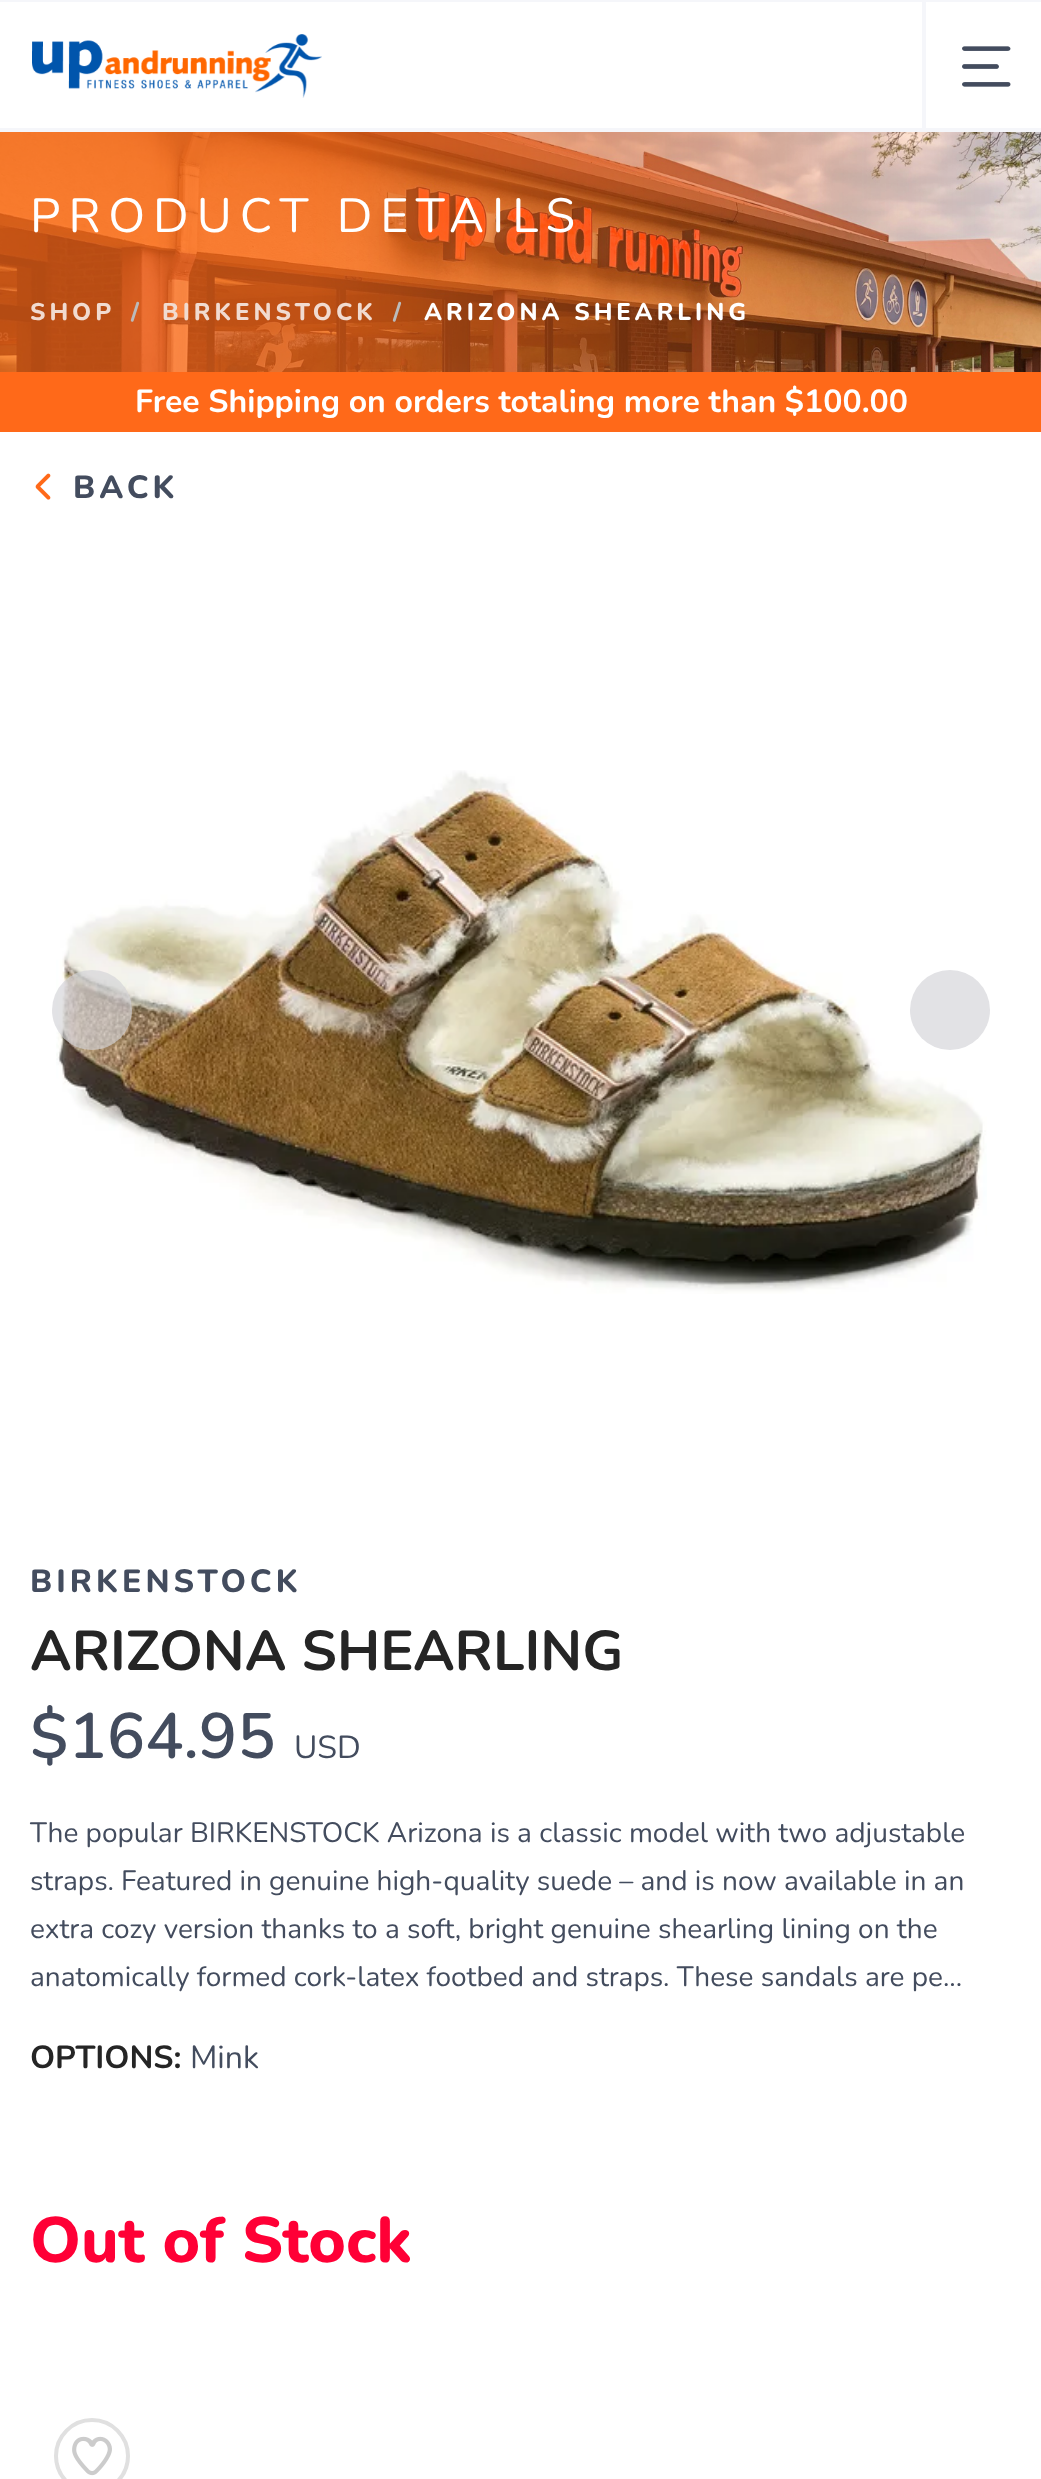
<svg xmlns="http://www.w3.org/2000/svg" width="1041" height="2479">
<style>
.a{font:48px Nunito;letter-spacing:8px;fill:#fff}
.b{font:800 24px Nunito;letter-spacing:4px;fill:#f1dbd0}
.c{font:800 24px Nunito;letter-spacing:4px;fill:#bbb}
.d{font:800 24px Nunito;letter-spacing:4px;fill:#fff}
.e{font:bold 32px Nunito;fill:#fff}
.f{font:800 32px Nunito;letter-spacing:4px;fill:#434c5e}
.g{font:bold 56px Nunito;fill:#252525}
.h{font:600 64px Nunito;fill:#434c5e}
.i{font:32px Nunito;fill:#434c5e}
.j{font:28px Nunito;fill:#434c5e}
.k{font:bold 32px Nunito;fill:#252525}
.l{font:800 64px Nunito;fill:#ff0036}
</style>
<rect width="100%" height="100%" fill="#fff"/>
<path fill="#f5f6fa" d="M0 0h1041v2H0z"/>
<path fill="#f5f6fa" d="M0 128h1041v4H0z"/>
<image href="1.png" x="32" y="34" width="290" height="64"/>
<path fill="#f5f6fa" d="M922 2h4v126H922z"/>
<image href="2.png" x="962" y="46" width="49" height="41"/>
<image href="3.png" x="0" y="132" width="1041" height="240"/>
<path fill="#ff6919" d="M0 372h1041v60H0z"/>
<image href="4.png" x="35" y="473" width="16" height="27"/>
<image href="5.png" x="56" y="770" width="931" height="524"/>
<circle fill="#d2d2d7a3" cx="92" cy="1010" r="40"/>
<circle fill="#e2e2e5" cx="950" cy="1010" r="40"/>
<circle fill="none" stroke="#e0e0e0" stroke-width="4" cx="92" cy="2456" r="36"/>
<image href="6.png" x="72" y="2436" width="40" height="40"/>
<text class="a" x="30" y="232">PRODUCT DETAILS</text>
<text class="b" x="30" y="320">SHOP</text>
<text class="c" x="131" y="320">/</text>
<text class="b" x="162" y="320">BIRKENSTOCK</text>
<text class="c" x="393" y="320">/</text>
<text class="d" x="424" y="320">ARIZONA SHEARLING</text>
<text class="e" x="135" y="412">Free Shipping on orders totaling more than $100.00</text>
<text class="f" x="73" y="498">BACK</text>
<text class="f" x="30" y="1592">BIRKENSTOCK</text>
<text class="g" x="30" y="1670">ARIZONA SHEARLING</text>
<text class="h" x="30" y="1758">$164.95</text>
<text class="i" x="294" y="1758">USD</text>
<text class="j" x="30" y="1842">The popular BIRKENSTOCK Arizona is a classic model with two adjustable</text>
<text class="j" x="30" y="1890">straps. Featured in genuine high-quality suede – and is now available in an</text>
<text class="j" x="30" y="1938">extra cozy version thanks to a soft, bright genuine shearling lining on the</text>
<text class="j" x="30" y="1986">anatomically formed cork-latex footbed and straps. These sandals are pe...</text>
<text class="k" x="30" y="2068">OPTIONS:</text>
<text class="i" x="190" y="2068">Mink</text>
<text class="l" x="30" y="2262">Out of Stock</text>
</svg>
